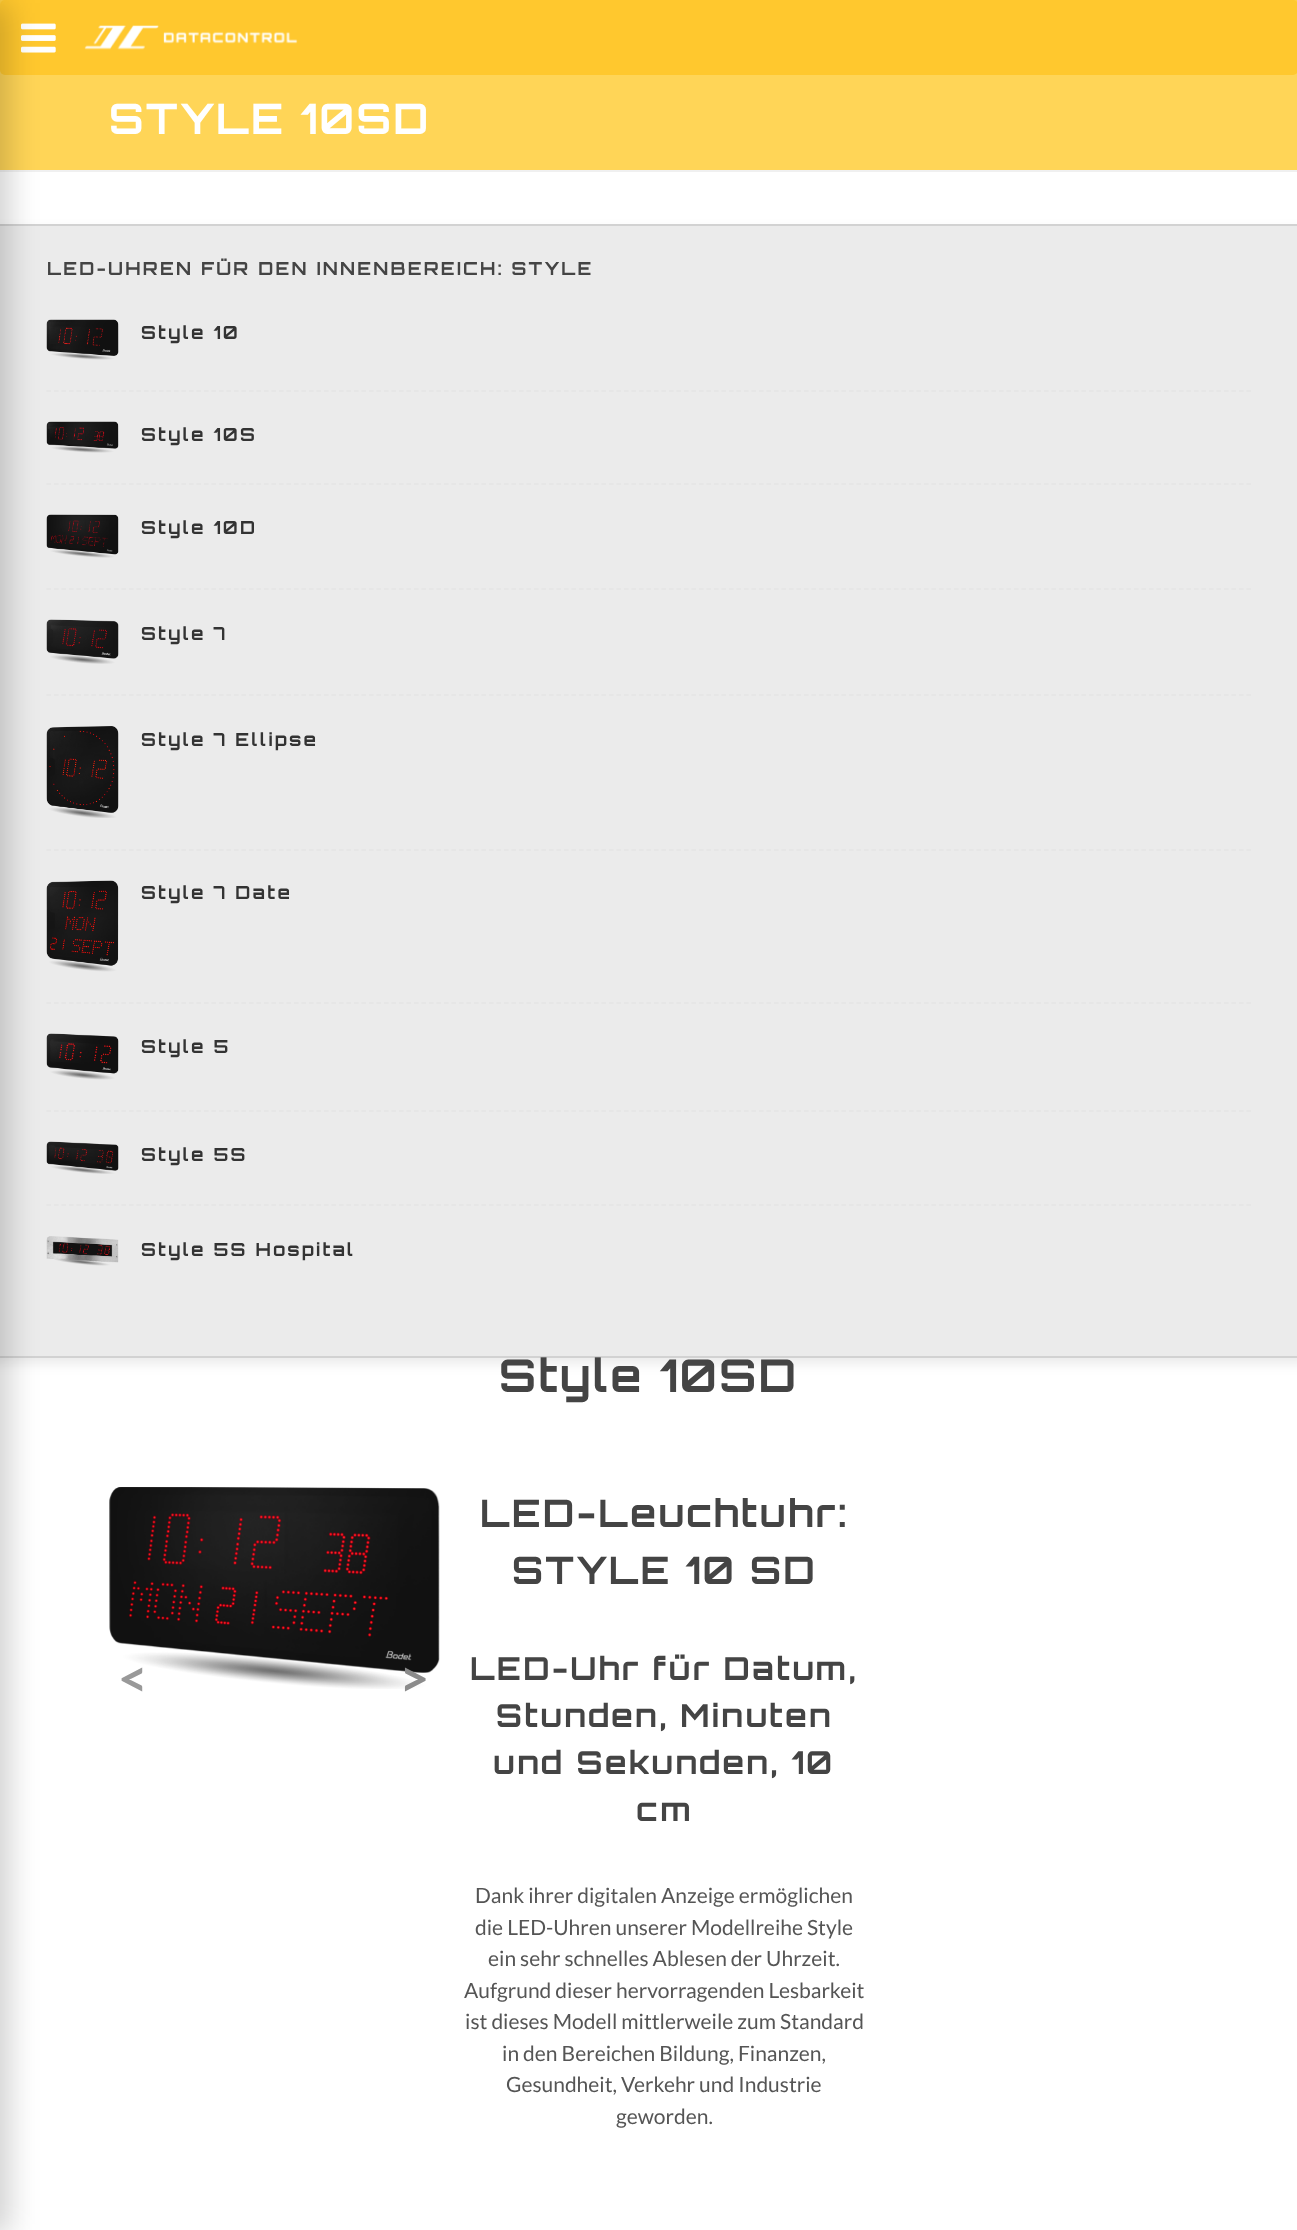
<svg xmlns="http://www.w3.org/2000/svg" width="1297" height="2230">
<style>
.a{font:bold 42px Orbitron;letter-spacing:2.25px;fill:#fff}
.b{font:bold 45px Orbitron;letter-spacing:2.25px;fill:#444}
.c{font:bold 18px Orbitron;letter-spacing:2.25px;fill:#333}
.d{font:bold 18px Orbitron;letter-spacing:2.25px;fill:#444}
.e{font:bold 52px Lato;fill:#999}
.f{font:bold 52px Lato;fill:#8b8b8b}
.g{font:bold 37.75px Orbitron;letter-spacing:2.25px;fill:#444}
.h{font:bold 31.5px Orbitron;letter-spacing:2.25px;fill:#444}
.i{font:21px Lato;fill:#555}
</style>
<defs>
<clipPath id="clip1"><path d="M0 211h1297v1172h-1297zm-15 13h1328v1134h-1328z" clip-rule="evenodd"/></clipPath>
</defs>
<rect width="100%" height="100%" fill="#ffd044"/>
<path fill="#ffd557" d="M0 70h1297v100H0z"/>
<rect fill="#ffc82e" width="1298" height="75" rx="5"/>
<image href="1.png" x="21" y="23" width="35" height="30"/>
<image href="2.png" x="84" y="25" width="214" height="25"/>
<path fill="#fff" d="M0 172h1297v2058H0z"/>
<path fill="#f0f0f0" d="M0 170h1297v2H0z"/>
<g clip-path="url(#clip1)">
<path fill="#00000014" filter="blur(6px)" d="M-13 230h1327v1134H-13z"/>
</g>
<path fill="#00000014" d="M0 224h1297v1134H0z"/>
<image href="12.png" x="109" y="1487" width="331" height="202"/>
<text class="a" x="109" y="134">STYLE 10SD</text>
<text class="b" x="499" y="1392">Style 10SD</text>
<path fill="none" stroke="#8080803d" stroke-width="2" d="M-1 225h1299v1132H-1z"/>
<image href="11.png" x="46" y="1236" width="73" height="30"/>
<image href="10.png" x="46" y="1141" width="73" height="33"/>
<image href="9.png" x="46" y="1033" width="73" height="47"/>
<image href="8.png" x="46" y="880" width="73" height="92"/>
<image href="7.png" x="46" y="726" width="73" height="92"/>
<image href="6.png" x="46" y="619" width="73" height="45"/>
<image href="5.png" x="46" y="514" width="73" height="44"/>
<image href="4.png" x="46" y="421" width="73" height="32"/>
<image href="3.png" x="46" y="319" width="73" height="41"/>
<path fill="none" stroke="#e5e5e5" stroke-width="1.5" stroke-dasharray="4.5 3" d="M46.5 1205h1204.5"/>
<path fill="none" stroke="#e5e5e5" stroke-width="1.5" stroke-dasharray="4.5 3" d="M46.5 1111h1204.5"/>
<path fill="none" stroke="#e5e5e5" stroke-width="1.5" stroke-dasharray="4.5 3" d="M46.5 1003h1204.5"/>
<path fill="none" stroke="#e5e5e5" stroke-width="1.5" stroke-dasharray="4.5 3" d="M46.5 850h1204.5"/>
<path fill="none" stroke="#e5e5e5" stroke-width="1.5" stroke-dasharray="4.5 3" d="M46.5 695h1204.5"/>
<path fill="none" stroke="#e5e5e5" stroke-width="1.5" stroke-dasharray="4.5 3" d="M46.5 589h1204.5"/>
<path fill="none" stroke="#e5e5e5" stroke-width="1.5" stroke-dasharray="4.5 3" d="M46.5 484h1204.5"/>
<path fill="none" stroke="#e5e5e5" stroke-width="1.5" stroke-dasharray="4.5 3" d="M46.5 391h1204.5"/>
<path fill="#00000030" filter="blur(15px)" d="M-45 3h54v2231H-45z"/>
<text class="c" x="141" y="1256">Style 5S Hospital</text>
<text class="c" x="141" y="1161">Style 5S</text>
<text class="c" x="141" y="1053">Style 5</text>
<text class="c" x="141" y="899">Style 7 Date</text>
<text class="c" x="141" y="746">Style 7 Ellipse</text>
<text class="c" x="141" y="640">Style 7</text>
<text class="c" x="141" y="534">Style 10D</text>
<text class="c" x="141" y="441">Style 10S</text>
<text class="c" x="141" y="339">Style 10</text>
<text class="d" x="47" y="275">LED-UHREN FÜR DEN INNENBEREICH: STYLE</text>
<text class="e" x="118" y="1697">&lt;</text>
<text class="f" x="399" y="1697">&gt;</text>
<text class="g" x="480" y="1527">LED-Leuchtuhr:</text>
<text class="g" x="512" y="1584">STYLE 10 SD</text>
<text class="h" x="470" y="1680">LED-Uhr für Datum,</text>
<text class="h" x="496" y="1727">Stunden, Minuten</text>
<text class="h" x="493" y="1774">und Sekunden, 10</text>
<text class="h" x="636" y="1821">cm</text>
<text class="i" x="475" y="1903">Dank ihrer digitalen Anzeige ermöglichen</text>
<text class="i" x="475" y="1935">die LED-Uhren unserer Modellreihe Style</text>
<text class="i" x="488" y="1966">ein sehr schnelles Ablesen der Uhrzeit.</text>
<text class="i" x="464" y="1998">Aufgrund dieser hervorragenden Lesbarkeit</text>
<text class="i" x="465" y="2029">ist dieses Modell mittlerweile zum Standard</text>
<text class="i" x="502" y="2061">in den Bereichen Bildung, Finanzen,</text>
<text class="i" x="506" y="2092">Gesundheit, Verkehr und Industrie</text>
<text class="i" x="616" y="2124">geworden.</text>
</svg>
